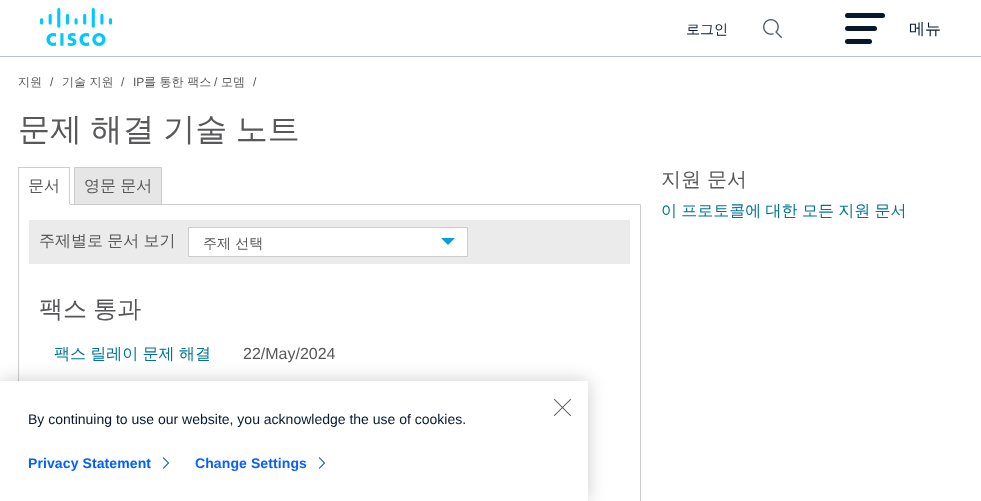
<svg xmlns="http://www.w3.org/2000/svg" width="981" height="501">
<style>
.a{font:500 14px WenQuanYi Zen Hei;fill:#07182d}
.b{font:500 16px WenQuanYi Zen Hei;fill:#07182d}
.c{font:500 12px WenQuanYi Zen Hei;fill:#58585b}
.d{font:12px Liberation Sans;fill:#58585b}
.e{font:500 32px WenQuanYi Zen Hei;fill:#58585b}
.f{font:500 16px WenQuanYi Zen Hei;fill:#58585b}
.g{font:500 14px WenQuanYi Zen Hei;fill:#58585b}
.h{font:500 24px WenQuanYi Zen Hei;fill:#58585b}
.i{font:500 16px WenQuanYi Zen Hei;fill:#007493}
.j{font:16px Liberation Sans;fill:#58585b}
.k{font:500 20px WenQuanYi Zen Hei;fill:#58585b}
.l{font:14px Liberation Sans;fill:#07182d}
.m{font:bold 14px Liberation Sans;letter-spacing:0.1px;fill:#0060ff}
.n{font:bold 14px Liberation Sans;letter-spacing:0.1px;fill:#0a60ff}
</style>
<rect width="100%" height="100%" fill="#fff"/>
<path fill="#b9c1c9" d="M0 56h981v1H0z"/>
<image href="1.png" x="40" y="8" width="72" height="38"/>
<image href="2.png" x="763" y="19" width="20" height="20"/>
<rect fill="#07182d" x="845" y="13" width="40" height="5" rx="2.5"/>
<rect fill="#07182d" x="845" y="26" width="32" height="5" rx="2.5"/>
<rect fill="#07182d" x="845" y="39" width="27" height="5" rx="2.5"/>
<path fill="#ccc" d="M18 167h52v1H18z"/>
<path fill="none" stroke="#ccc" d="M18.5 204.5h622v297H18.5z"/>
<path fill="#ccc" d="M69 167h1v38H69z"/>
<path fill="#fff" d="M18 204h52v1H18z"/>
<path fill="#ccc" d="M18 167h1v38H18z"/>
<path fill="#e6e6e6" stroke="#ccc" d="M74.5 167.5h87v37H74.5z"/>
<path fill="#ebebeb" d="M29 220h601v44H29z"/>
<path fill="#fff" stroke="#ccc" d="M188.5 227.5h279v29H188.5z"/>
<path fill="#049fd9" d="M441 238h14l-7 7z"/>
<path fill="#00000033" filter="blur(9px)" d="M0 381h588v120H0z"/>
<path fill="#fff" d="M0 381h588v120H0z"/>
<image href="3.png" x="553" y="398" width="19" height="19"/>
<image href="4.png" x="162" y="457" width="7" height="12"/>
<image href="4.png" x="318" y="457" width="7" height="12"/>
<text class="a" x="686" y="34">로그인</text>
<text class="b" x="909" y="34">메뉴</text>
<text class="c" x="18" y="86">지원</text>
<text class="d" x="50" y="86">/</text>
<text class="c" x="62" y="86">기술 지원</text>
<text class="d" x="121" y="86">/</text>
<text class="d" x="133" y="86">IP</text>
<text class="c" x="144" y="86">를 통한 팩스</text>
<text class="d" x="214" y="86">/</text>
<text class="c" x="221" y="86">모뎀</text>
<text class="d" x="253" y="86">/</text>
<text class="e" x="18" y="140" word-spacing="-1">문제 해결 기술 노트</text>
<text class="f" x="28" y="191">문서</text>
<text class="f" x="84" y="191" word-spacing="-0.5">영문 문서</text>
<text class="f" x="39" y="246" word-spacing="-0.5">주제별로 문서 보기</text>
<text class="g" x="203" y="248">주제 선택</text>
<text class="h" x="39" y="317" word-spacing="-1">팩스 통과</text>
<text class="i" x="54" y="359" word-spacing="-0.5">팩스 릴레이 문제 해결</text>
<text class="j" x="243" y="359">22/May/2024</text>
<text class="k" x="661" y="186">지원 문서</text>
<text class="i" x="661" y="216" word-spacing="-0.5">이 프로토콜에 대한 모든 지원 문서</text>
<text class="l" x="28" y="424">By continuing to use our website, you acknowledge the use of cookies.</text>
<text class="m" x="28" y="468">Privacy Statement</text>
<text class="n" x="195" y="468">Change Settings</text>
</svg>
